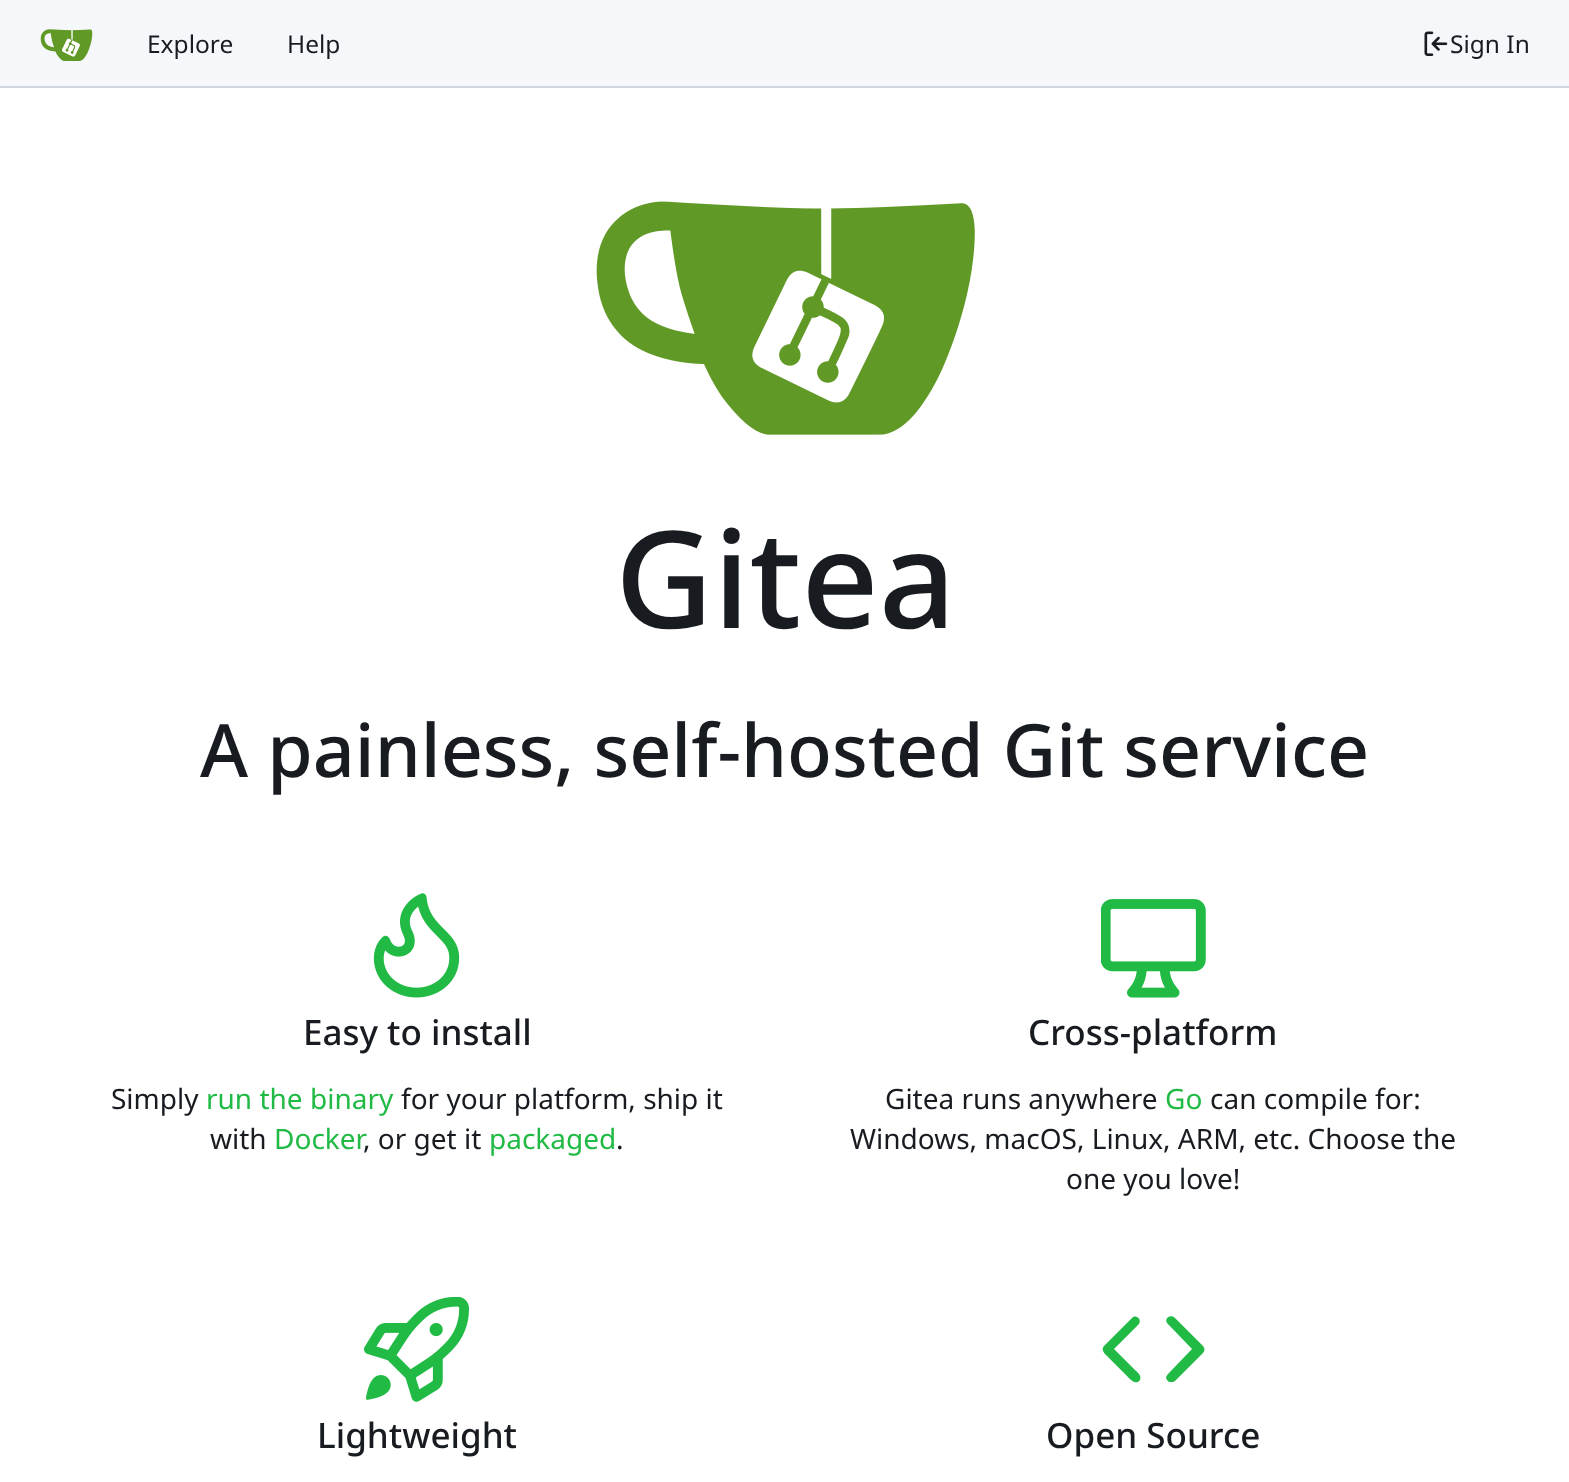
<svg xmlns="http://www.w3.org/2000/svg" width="1569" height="1482">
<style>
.a{font:24.5px Noto Sans;fill:#181c21}
.b{font:500 135px Noto Sans;fill:#181c21}
.c{font:500 73.5px Noto Sans;fill:#181c21}
.d{font:500 35px Noto Sans;fill:#181c21}
.e{font:28px Noto Sans;fill:#181c21}
.f{font:28px Noto Sans;fill:#21ba45}
</style>
<rect width="100%" height="100%" fill="#fff"/>
<path fill="#f6f7fa" d="M0 0h1569v86H0z"/>
<path fill="#d0d7de" d="M0 86h1569v2H0z"/>
<image href="1.png" x="40" y="29" width="53" height="32"/>
<image href="2.png" x="1424" y="31" width="24" height="25"/>
<image href="3.png" x="596" y="201" width="379" height="234"/>
<image href="4.png" x="373" y="893" width="87" height="105"/>
<image href="5.png" x="1101" y="899" width="105" height="99"/>
<image href="6.png" x="364" y="1297" width="105" height="105"/>
<path fill="#21ba45" d="M1175 1318l28 28c2 2 2 5 0 7l-28 28c-1 1-3 1-5 1c-2 0-3-2-4-4c0-1 1-3 2-4l24-25l-25-26c-3-5 4-9 8-5m-43 0c4-4 10 1 7 6l-25 25l21 21c2 2 7 5 5 10c-4 6-10-1-13-4l-19-19c-2-2-8-7-4-11z"/>
<text class="a" x="147" y="53">Explore</text>
<text class="a" x="287" y="53">Help</text>
<text class="a" x="1450" y="53">Sign In</text>
<text class="b" x="615" y="628">Gitea</text>
<text class="c" x="200" y="777">A painless, self-hosted Git service</text>
<text class="d" x="303" y="1045">Easy to install</text>
<text class="e" x="111" y="1109">Simply</text>
<text class="f" x="206" y="1109">run the binary</text>
<text class="e" x="401" y="1109">for your platform, ship it</text>
<text class="e" x="210" y="1149">with</text>
<text class="f" x="274" y="1149">Docker</text>
<text class="e" x="363" y="1149">, or get it</text>
<text class="f" x="489" y="1149">packaged</text>
<text class="e" x="616" y="1149">.</text>
<text class="d" x="1028" y="1045">Cross-platform</text>
<text class="e" x="885" y="1109">Gitea runs anywhere</text>
<text class="f" x="1165" y="1109">Go</text>
<text class="e" x="1210" y="1109">can compile for:</text>
<text class="e" x="850" y="1149">Windows, macOS, Linux, ARM, etc. Choose the</text>
<text class="e" x="1066" y="1189">one you love!</text>
<text class="d" x="317" y="1448">Lightweight</text>
<text class="d" x="1046" y="1448">Open Source</text>
</svg>
